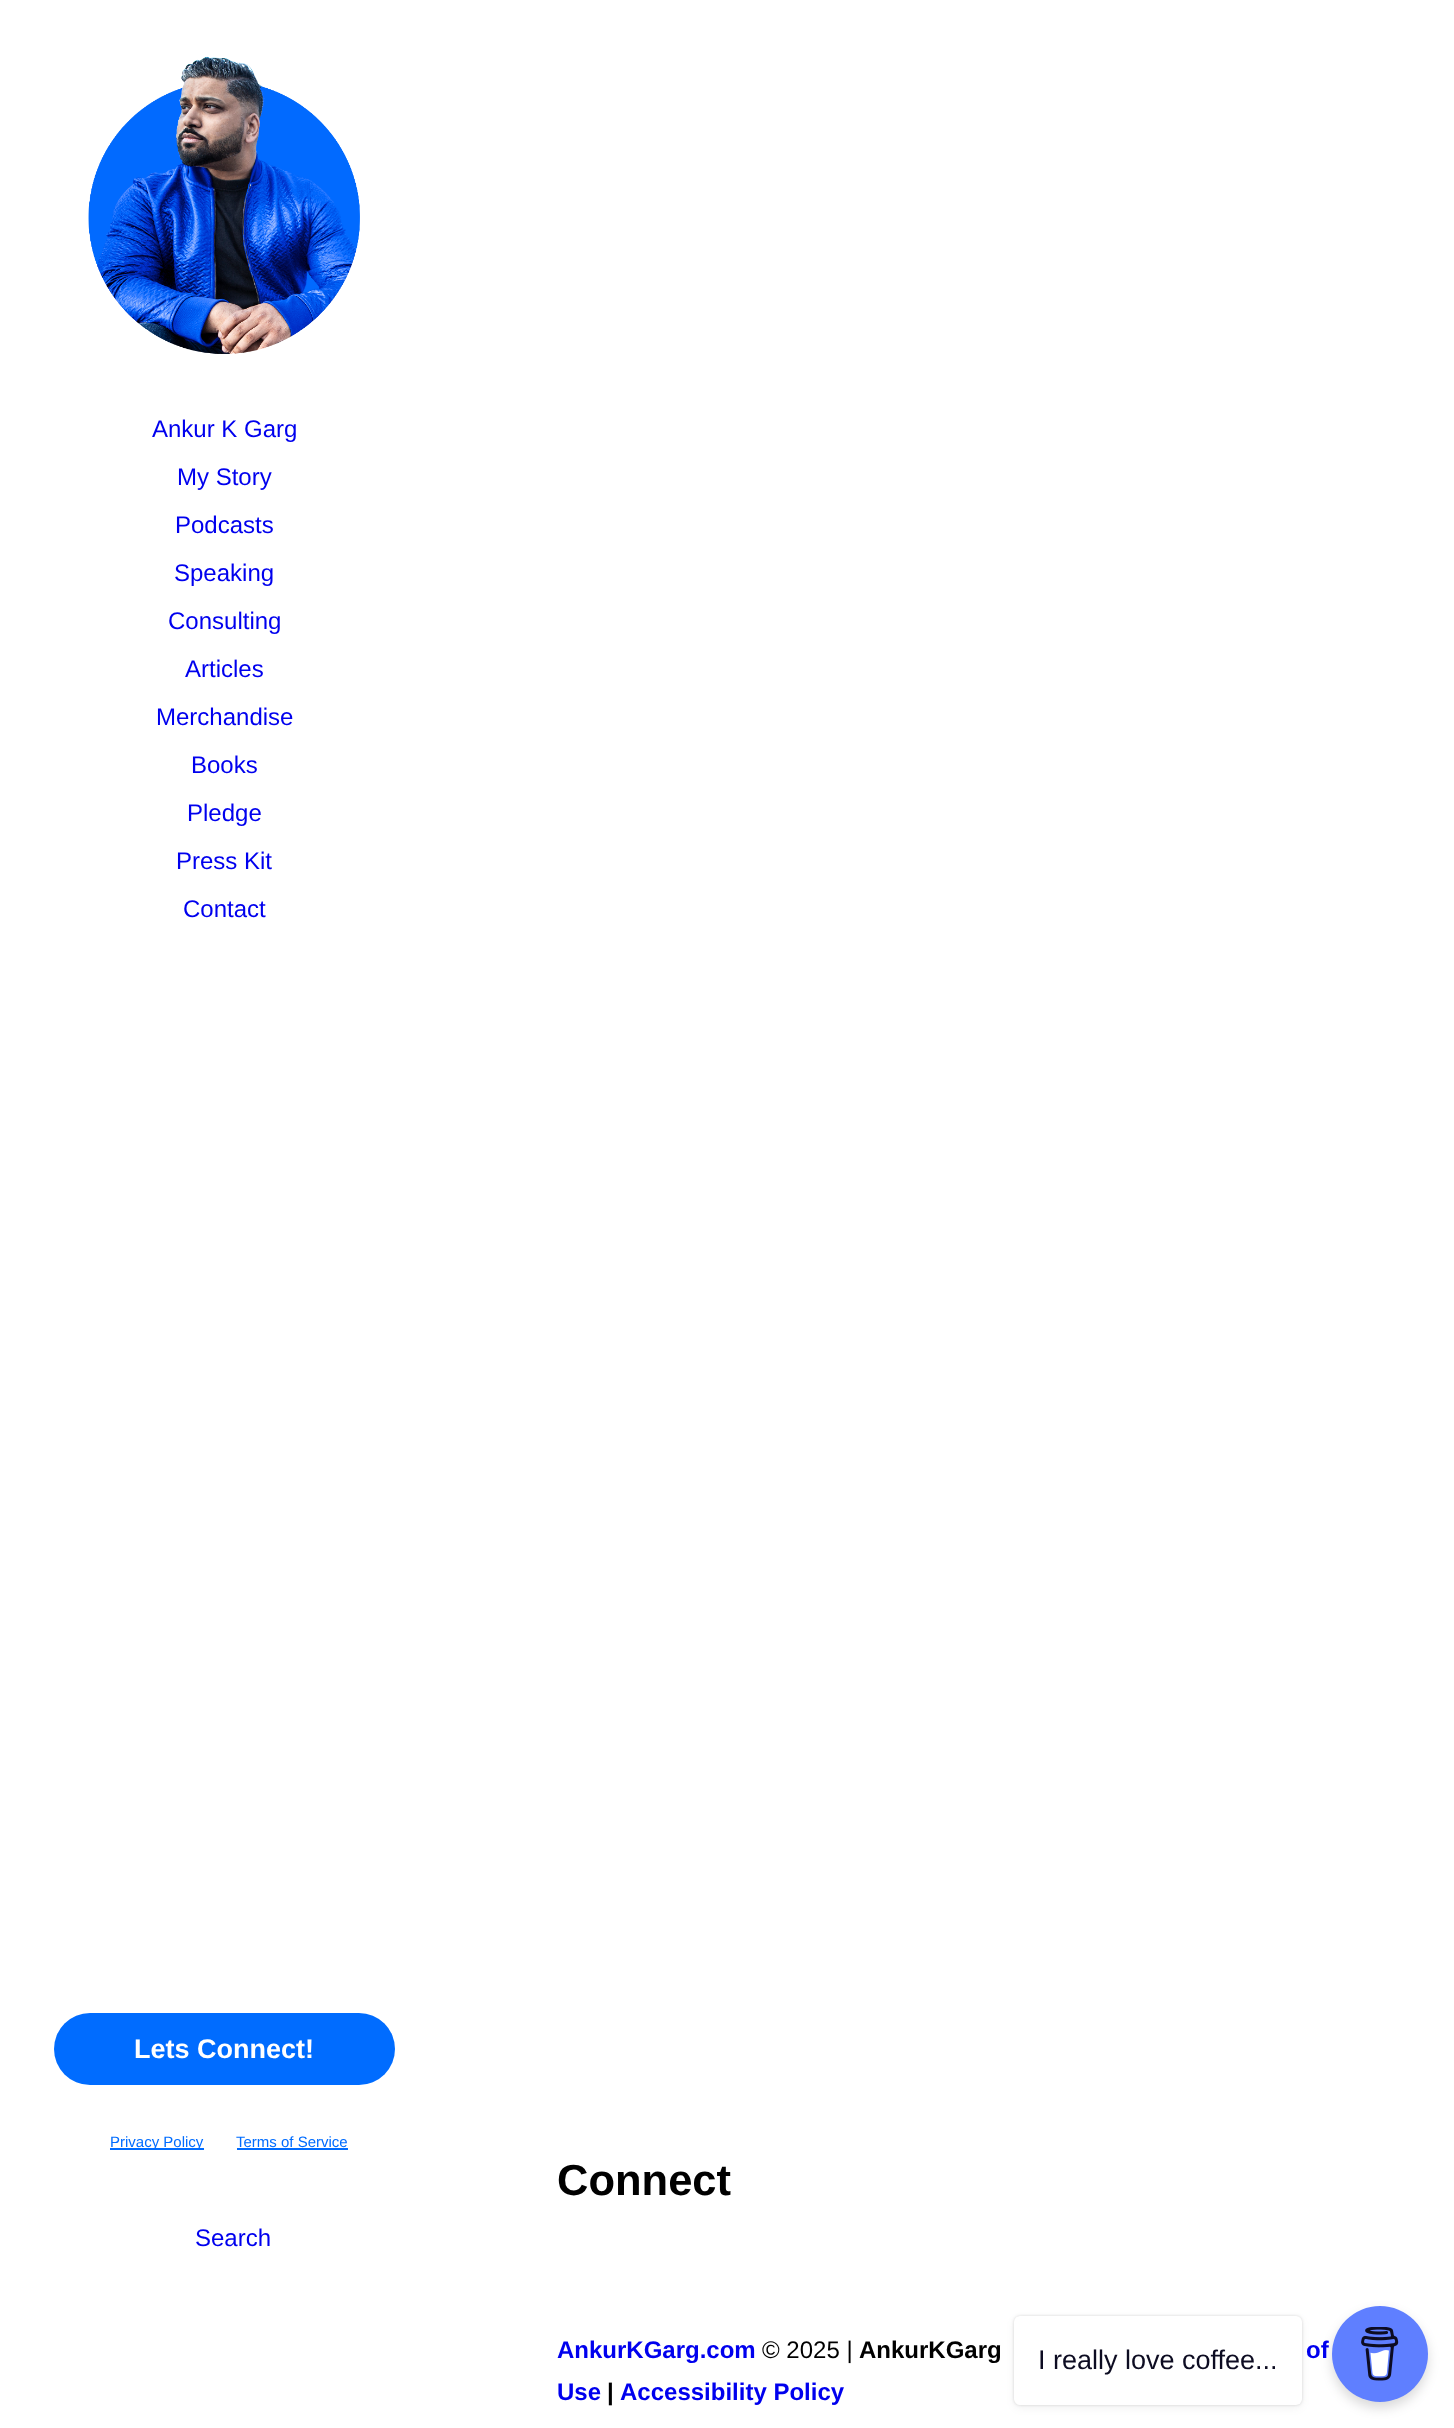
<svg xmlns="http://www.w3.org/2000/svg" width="1454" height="2428">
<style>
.a{font:24px Liberation Sans;fill:#00e}
.b{font:bold 27px Liberation Sans;fill:#fff}
.c{font:15px Liberation Sans;fill:#006cff}
.d{font:bold 43.5px Liberation Sans;fill:#000}
.e{font:bold 24px Liberation Sans;fill:#00e}
.f{font:24px Liberation Sans;fill:#000}
.g{font:bold 24px Liberation Sans;fill:#000}
.h{font:27px Liberation Sans;fill:#0d0c22}
</style>
<rect width="100%" height="100%" fill="#fff"/>
<image href="1.png" x="88" y="56" width="272" height="298"/>
<rect fill="#006cff" x="54" y="2013" width="341" height="72" rx="36"/>
<path fill="#006cff" d="M110 2148h94v2H110z"/>
<path fill="#006cff" d="M237 2148h111v2H237z"/>
<rect fill="#00000026" filter="blur(6px)" x="1332" y="2312" width="96" height="96" rx="48"/>
<circle fill="#5f7fff" cx="1380" cy="2354" r="48"/>
<image href="2.png" x="1361" y="2327" width="38" height="54"/>
<rect fill="#00000026" filter="blur(1.5px)" x="1014" y="2316" width="288" height="89" rx="6"/>
<rect fill="#0000000d" filter="blur(4px)" x="1014" y="2319" width="288" height="89" rx="6"/>
<rect fill="#fff" x="1014" y="2316" width="288" height="89" rx="6"/>
<text class="a" x="152" y="437">Ankur K Garg</text>
<text class="a" x="177" y="485">My Story</text>
<text class="a" x="175" y="533">Podcasts</text>
<text class="a" x="174" y="581">Speaking</text>
<text class="a" x="168" y="629">Consulting</text>
<text class="a" x="185" y="677">Articles</text>
<text class="a" x="156" y="725">Merchandise</text>
<text class="a" x="191" y="773">Books</text>
<text class="a" x="187" y="821">Pledge</text>
<text class="a" x="176" y="869">Press Kit</text>
<text class="a" x="183" y="917">Contact</text>
<text class="b" x="134" y="2058">Lets Connect!</text>
<text class="c" x="110" y="2147">Privacy Policy</text>
<text class="c" x="236" y="2147">Terms of Service</text>
<text class="a" x="195" y="2246">Search</text>
<text class="d" x="557" y="2195">Connect</text>
<text class="e" x="557" y="2358">AnkurKGarg.com</text>
<text class="f" x="762" y="2358">© 2025 |</text>
<text class="g" x="859" y="2358">AnkurKGarg</text>
<text class="e" x="1306" y="2358">of</text>
<text class="e" x="557" y="2400">Use</text>
<text class="g" x="607" y="2400">|</text>
<text class="e" x="620" y="2400">Accessibility Policy</text>
<text class="h" x="1038" y="2369">I really love coffee...</text>
</svg>
